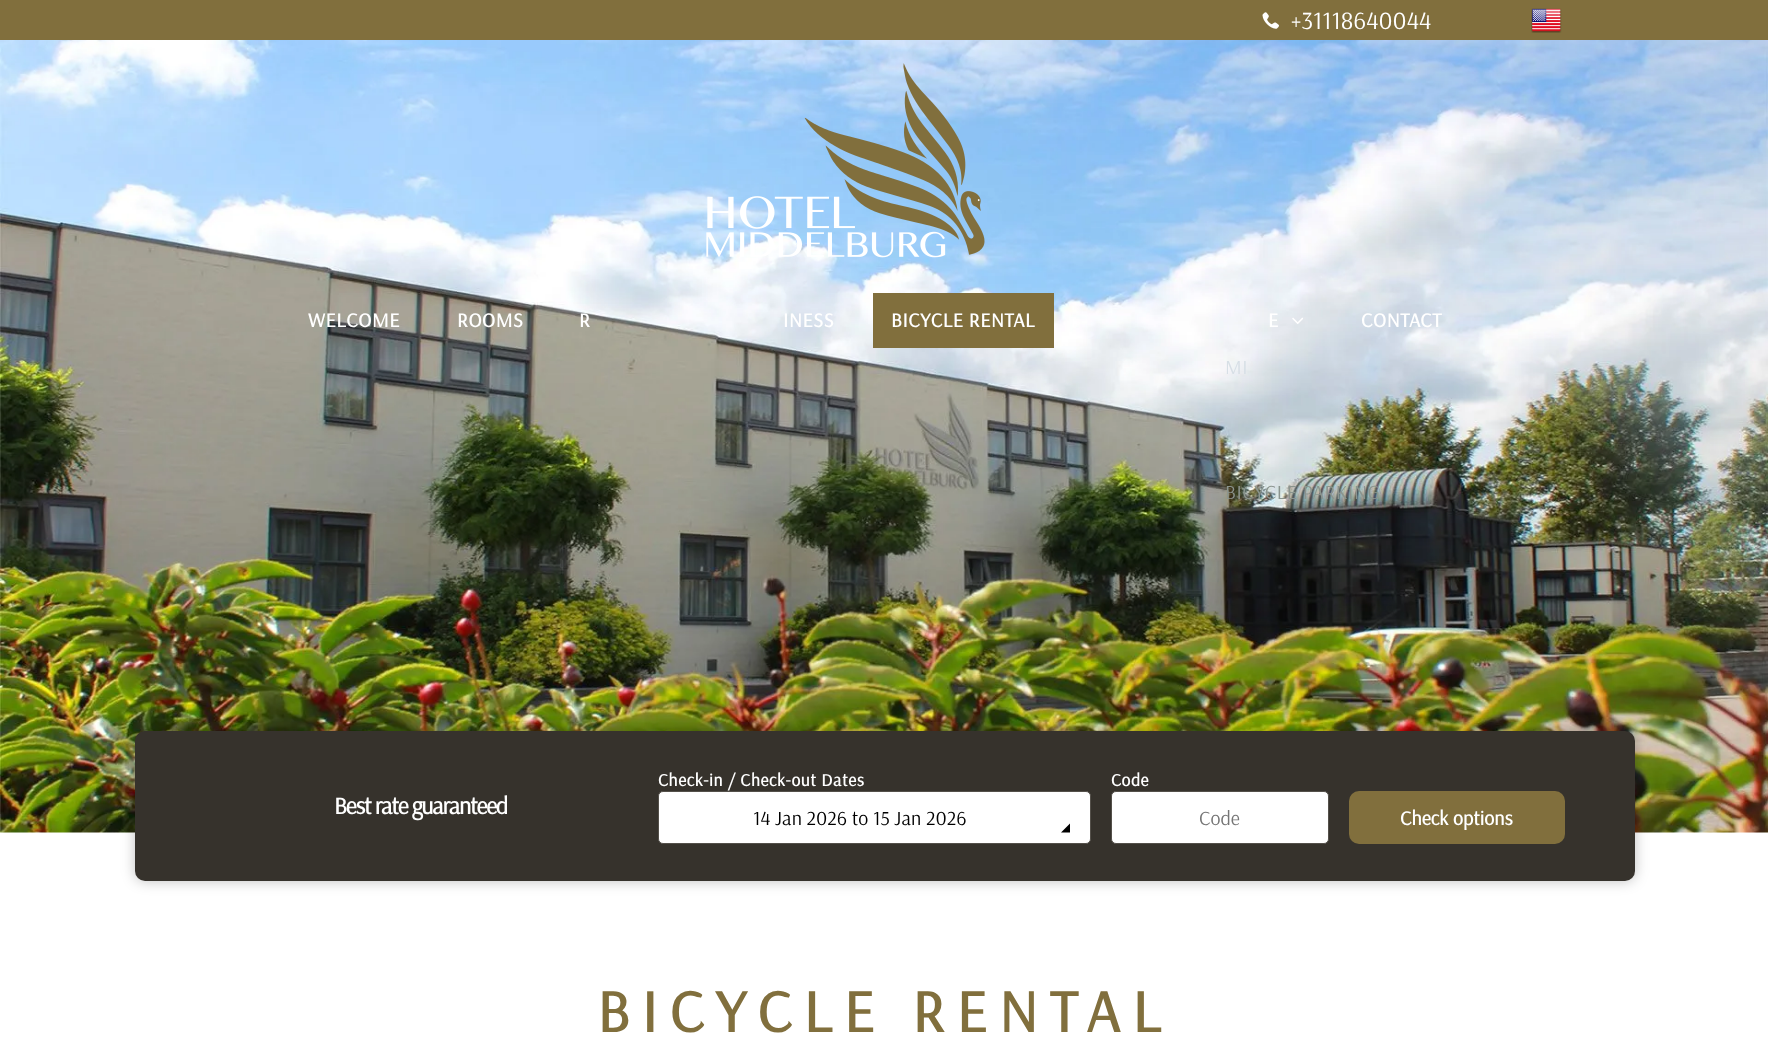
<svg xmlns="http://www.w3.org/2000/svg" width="1768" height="1041">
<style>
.a{font:25px Arsenal;fill:#fff}
.b{font:bold 20px Arsenal;letter-spacing:0.6px;fill:#fff}
.c{font:20px Arsenal;letter-spacing:0.6px;fill:#d7dfe6}
.d{font:20px Arsenal;letter-spacing:0.6px;fill:#8b948e}
.e{font:bold 17.5px Arsenal;letter-spacing:0.6px;fill:#fff}
.f{font:bold 24px Arsenal;letter-spacing:-1.25px;fill:#fff}
.g{font:20px Arsenal;fill:#000}
.h{font:20px Arsenal;fill:#757575}
.i{font:bold 20px Arsenal;fill:#fff}
.j{font:bold 60px Arsenal;letter-spacing:12px;fill:#816f3d}
</style>
<rect width="100%" height="100%" fill="#fff"/>
<path fill="#816f3d" d="M0 0h1768v40H0z"/>
<image href="1.png" x="1262" y="12" width="17" height="17"/>
<image href="2.png" x="1531" y="8" width="31" height="25"/>
<image href="5.png" x="0" y="40" width="1768" height="793"/>
<image href="3.png" x="706" y="63" width="279" height="195"/>
<path fill="#816f3d" d="M873 293h181v55H873z"/>
<image href="4.png" x="1292" y="317" width="11" height="7"/>
<rect fill="#00000040" filter="blur(7px)" x="135" y="731" width="1500" height="150" rx="10"/>
<rect fill="#36322c" x="135" y="731" width="1500" height="150" rx="10"/>
<rect fill="#fff" stroke="#54504a" x="658.5" y="791.5" width="432" height="52" rx="4.5"/>
<path fill="#000" d="M1070 823.5v9h-9z"/>
<rect fill="#fff" stroke="#54504a" x="1111.5" y="791.5" width="217" height="52" rx="4.5"/>
<rect fill="#816f3d" x="1349" y="791" width="216" height="53" rx="10"/>
<text class="a" x="1291" y="29">+31118640044</text>
<text class="b" x="308" y="327">WELCOME</text>
<text class="b" x="457" y="327">ROOMS</text>
<text class="b" x="579" y="327">R</text>
<text class="b" x="783" y="327">INESS</text>
<text class="b" x="891" y="327">BICYCLE RENTAL</text>
<text class="b" x="1268" y="327">E</text>
<text class="c" x="1225" y="374">MI</text>
<text class="d" x="1225" y="499">BICYCLE PARKING</text>
<text class="b" x="1361" y="327">CONTACT</text>
<text class="e" x="658" y="786">Check-in / Check-out Dates</text>
<text class="e" x="1111" y="786">Code</text>
<text class="f" x="334" y="814">Best rate guaranteed</text>
<text class="g" x="753" y="825">14 Jan 2026 to 15 Jan 2026</text>
<text class="h" x="1199" y="825">Code</text>
<text class="i" x="1400" y="825">Check options</text>
<text class="j" x="597" y="1032">BICYCLE RENTAL</text>
</svg>
